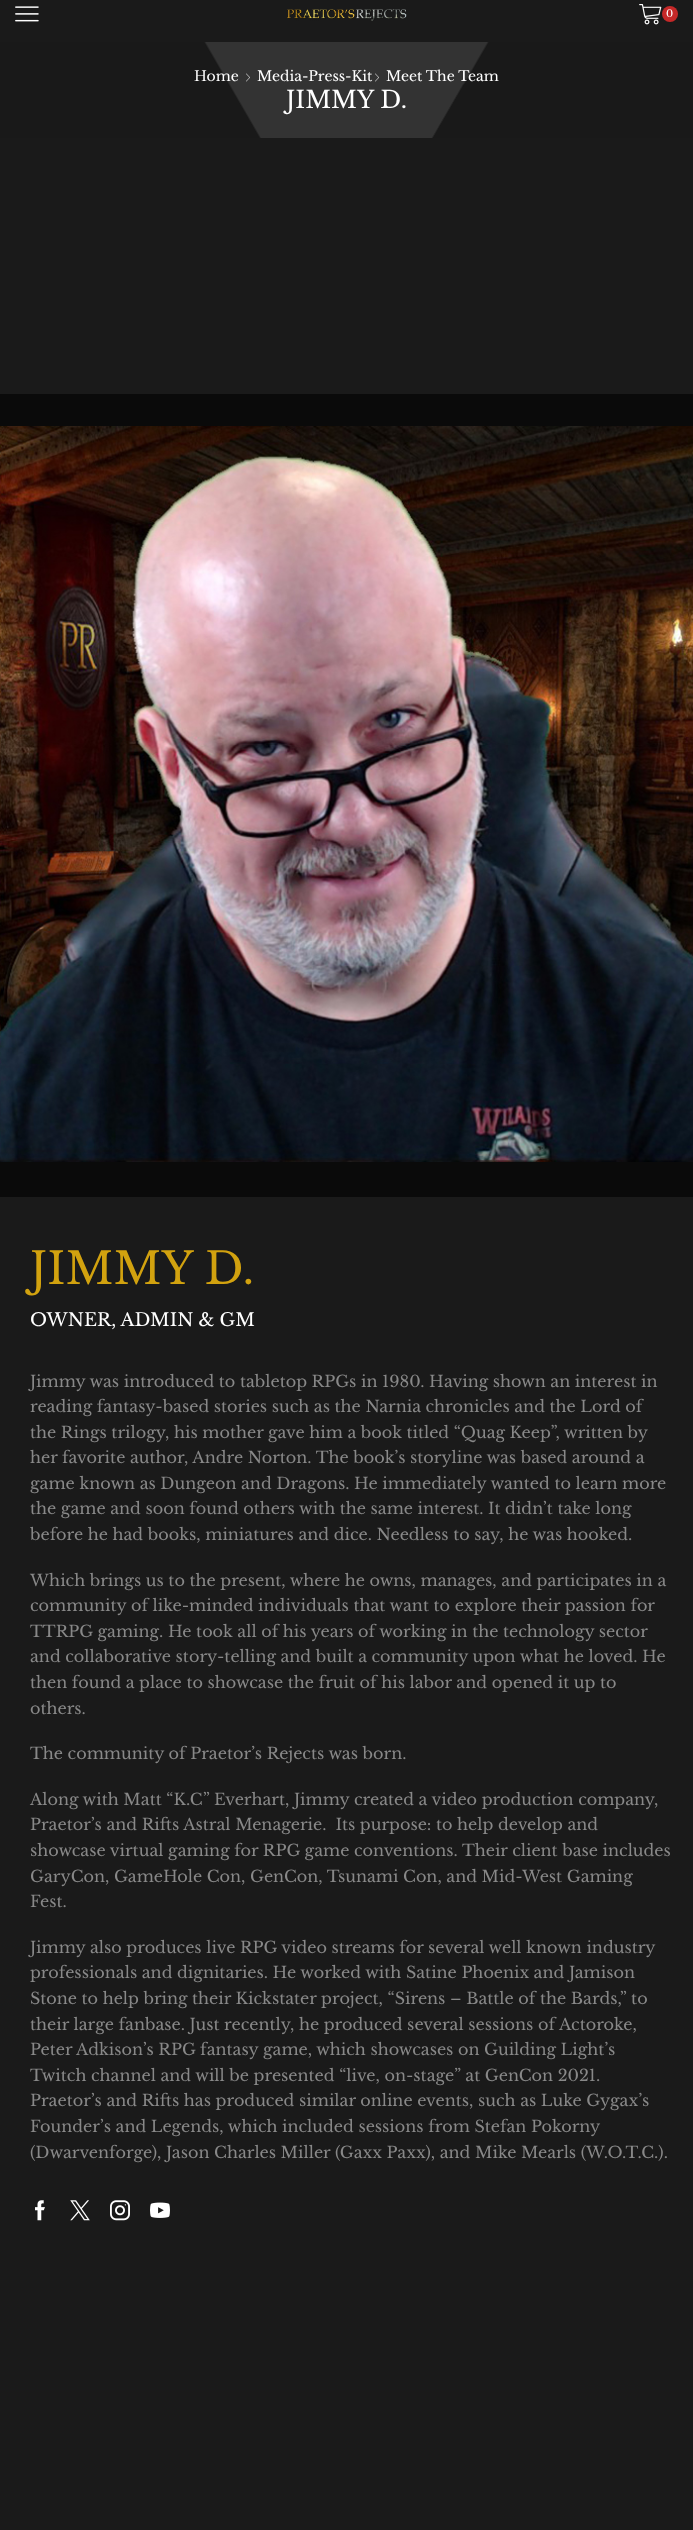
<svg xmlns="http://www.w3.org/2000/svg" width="693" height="2530">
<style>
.a{font:10px Libre Baskerville;fill:#fff}
.b{font:14px Libre Baskerville;fill:#fff}
.c{font:23.75px Libre Baskerville;fill:#fff}
.d{font:44px Libre Baskerville;fill:#d2a20f}
.e{font:18px Libre Baskerville;fill:#fff}
.f{font:16px Libre Baskerville;fill:#888}
</style>
<rect width="100%" height="100%" fill="#1a1a1a"/>
<image href="1.png" x="15" y="6" width="24" height="16"/>
<image href="2.png" x="287" y="9" width="120" height="12"/>
<image href="3.png" x="639" y="4" width="23" height="21"/>
<circle fill="#c62828" cx="670" cy="14" r="8"/>
<path fill="#333" d="M204 42h285v96H204z"/>
<image href="4.png" x="0" y="42" width="693" height="96"/>
<image href="5.png" x="246" y="73" width="4" height="9"/>
<image href="5.png" x="375" y="73" width="4" height="9"/>
<path fill="#0a0a0a" d="M0 394h693v803H0z"/>
<image href="6.png" x="0" y="426" width="693" height="736"/>
<image href="7.png" x="35" y="2200" width="10" height="21"/>
<image href="8.png" x="70" y="2200" width="20" height="21"/>
<image href="9.png" x="110" y="2200" width="20" height="21"/>
<image href="10.png" x="150" y="2202" width="20" height="16"/>
<text class="a" x="666" y="17">0</text>
<text class="b" x="194" y="81">Home</text>
<text class="b" x="257" y="81">Media-Press-Kit</text>
<text class="b" x="386" y="81">Meet The Team</text>
<text class="c" x="286" y="108">JIMMY D.</text>
<text class="d" x="30" y="1284">JIMMY D.</text>
<text class="e" x="30" y="1326">OWNER, ADMIN &amp; GM</text>
<text class="f" x="30" y="1387">Jimmy was introduced to tabletop RPGs in 1980. Having shown an interest in</text>
<text class="f" x="30" y="1412">reading fantasy-based stories such as the Narnia chronicles and the Lord of</text>
<text class="f" x="30" y="1438">the Rings trilogy, his mother gave him a book titled “Quag Keep”, written by</text>
<text class="f" x="30" y="1463">her favorite author, Andre Norton. The book’s storyline was based around a</text>
<text class="f" x="30" y="1489">game known as Dungeon and Dragons. He immediately wanted to learn more</text>
<text class="f" x="30" y="1514">the game and soon found others with the same interest. It didn’t take long</text>
<text class="f" x="30" y="1540">before he had books, miniatures and dice. Needless to say, he was hooked.</text>
<text class="f" x="30" y="1586">Which brings us to the present, where he owns, manages, and participates in a</text>
<text class="f" x="30" y="1611">community of like-minded individuals that want to explore their passion for</text>
<text class="f" x="30" y="1637">TTRPG gaming. He took all of his years of working in the technology sector</text>
<text class="f" x="30" y="1662">and collaborative story-telling and built a community upon what he loved. He</text>
<text class="f" x="30" y="1688">then found a place to showcase the fruit of his labor and opened it up to</text>
<text class="f" x="30" y="1714">others.</text>
<text class="f" x="30" y="1759">The community of Praetor’s Rejects was born.</text>
<text class="f" x="30" y="1805">Along with Matt “K.C” Everhart, Jimmy created a video production company,</text>
<text class="f" xml:space="preserve" x="30" y="1830">Praetor’s and Rifts Astral Menagerie.  Its purpose: to help develop and</text>
<text class="f" x="30" y="1856">showcase virtual gaming for RPG game conventions. Their client base includes</text>
<text class="f" x="30" y="1882">GaryCon, GameHole Con, GenCon, Tsunami Con, and Mid-West Gaming</text>
<text class="f" x="30" y="1907">Fest.</text>
<text class="f" x="30" y="1953">Jimmy also produces live RPG video streams for several well known industry</text>
<text class="f" x="30" y="1978">professionals and dignitaries. He worked with Satine Phoenix and Jamison</text>
<text class="f" x="30" y="2004">Stone to help bring their Kickstater project, “Sirens – Battle of the Bards,” to</text>
<text class="f" x="30" y="2030">their large fanbase. Just recently, he produced several sessions of Actoroke,</text>
<text class="f" x="30" y="2055">Peter Adkison’s RPG fantasy game, which showcases on Guilding Light’s</text>
<text class="f" x="30" y="2081">Twitch channel and will be presented “live, on-stage” at GenCon 2021.</text>
<text class="f" x="30" y="2106">Praetor’s and Rifts has produced similar online events, such as Luke Gygax’s</text>
<text class="f" x="30" y="2132">Founder’s and Legends, which included sessions from Stefan Pokorny</text>
<text class="f" x="30" y="2158">(Dwarvenforge), Jason Charles Miller (Gaxx Paxx), and Mike Mearls (W.O.T.C.).</text>
</svg>
